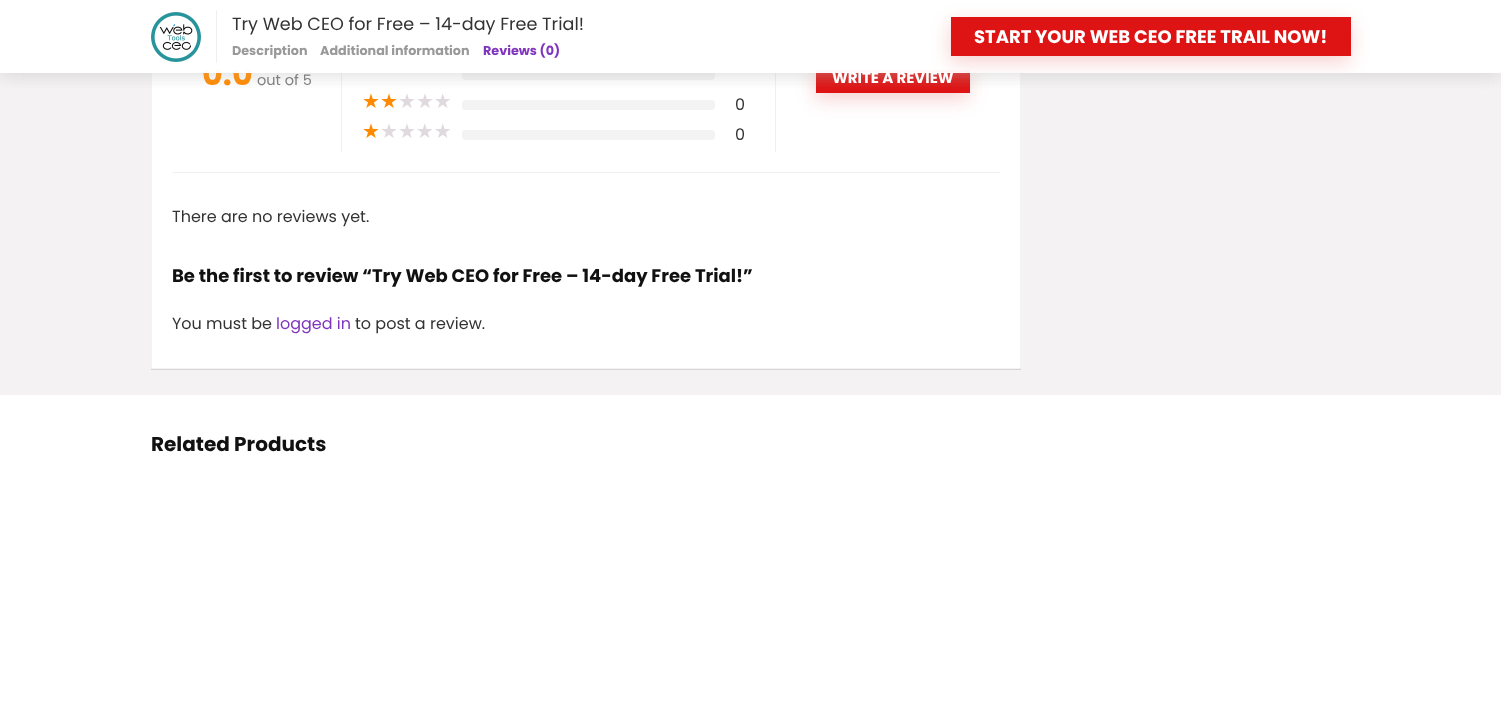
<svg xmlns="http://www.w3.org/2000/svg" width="1501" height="702">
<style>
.a{font:bold 32px Poppins;fill:#ff8a00}
.b{font:bold 12.75px Poppins;fill:#8035be}
.c{font:bold 12.75px Poppins;fill:#999}
.d{font:17.6px Poppins;fill:#333}
.e{font:14.5px Poppins;fill:#808080}
.f{font:bold 15px Poppins;fill:#fff}
.g{font:bold 18px Poppins;fill:#fff}
.h{font:20px DejaVu Sans;fill:#ff8a00}
.i{font:20px DejaVu Sans;fill:#e0dadf}
.j{font:16px Poppins;fill:#333}
.k{font:bold 18px Poppins;fill:#111}
.l{font:16px Poppins;fill:#8035be}
.m{font:bold 20px Poppins;fill:#111}
</style>
<defs>
<clipPath id="clip1"><path d="M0 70h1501v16H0z"/></clipPath>
<clipPath id="clip2"><path d="M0 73h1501v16H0z"/></clipPath>
<clipPath id="clip3"><path d="M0 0h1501v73H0z"/></clipPath>
</defs>
<rect width="100%" height="100%" fill="#fff"/>
<path fill="#f4f2f3" d="M0 0h1501v395H0z"/>
<path fill="#0000001f" filter="blur(0.5px)" d="M151 -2h870v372H151z"/>
<path fill="#fff" stroke="#f4f4f4" d="M151.5 -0.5h869v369H151.5z"/>
<path fill="#de141433" filter="blur(9.5px)" d="M815 68h154v31H815z"/>
<path fill="#de1414" d="M816 62h154v31H816z"/>
<path fill="#f0f0f0" d="M775 2h1v150H775z"/>
<path fill="#f0f0f0" d="M341 2h1v150H341z"/>
<rect fill="#f3f3f3" x="462" y="10" width="253" height="10" rx="4"/>
<rect fill="#f3f3f3" x="462" y="40" width="253" height="10" rx="4"/>
<rect fill="#f3f3f3" x="462" y="70" width="253" height="10" rx="4"/>
<rect fill="#f3f3f3" x="462" y="100" width="253" height="10" rx="4"/>
<g clip-path="url(#clip1)">
<path fill="#bbbbbb5c" filter="blur(10px)" d="M0 0h1501v70H0z"/>
</g>
<rect fill="#f3f3f3" x="462" y="130" width="253" height="10" rx="4"/>
<path fill="#f0f0f0" d="M172 172h828v1H172z"/>
<text class="a" x="202" y="85">0.0</text>
<path fill="#fffffff7" d="M0 0h1501v70H0z"/>
<g clip-path="url(#clip2)">
<path fill="#bbbbbb5c" filter="blur(10px)" d="M0 0h1501v73H0z"/>
</g>
<text class="b" x="483" y="55">Reviews (0)</text>
<text class="c" x="320" y="55">Additional information</text>
<text class="c" x="232" y="55">Description</text>
<text class="d" x="232" y="30">Try Web CEO for Free – 14-day Free Trial!</text>
<text class="e" x="257" y="85">out of 5</text>
<text class="f" x="832" y="83">WRITE A REVIEW</text>
<path fill="#fffffff7" d="M0 61h1501v12H0z"/>
<g clip-path="url(#clip3)">
<path fill="#de141433" filter="blur(9.5px)" d="M950 23h400v39H950z"/>
</g>
<path fill="#de1414" d="M951 17h400v39H951z"/>
<text class="g" x="974" y="43">START YOUR WEB CEO FREE TRAIL NOW!</text>
<path fill="#cecece4d" d="M216 10h1v53H216z"/>
<image href="1.png" x="151" y="12" width="50" height="50"/>
<text class="h" x="362" y="108">★★</text>
<text class="i" x="398" y="108">★★★</text>
<text class="j" x="735" y="110">0</text>
<text class="h" x="362" y="138">★</text>
<text class="i" x="380" y="138">★★★★</text>
<text class="j" x="735" y="140">0</text>
<text class="j" x="172" y="222">There are no reviews yet.</text>
<text class="k" x="172" y="282">Be the first to review “Try Web CEO for Free – 14-day Free Trial!”</text>
<text class="j" x="172" y="329">You must be</text>
<text class="l" x="276" y="329">logged in</text>
<text class="j" x="355" y="329">to post a review.</text>
<text class="m" x="151" y="451">Related Products</text>
</svg>
